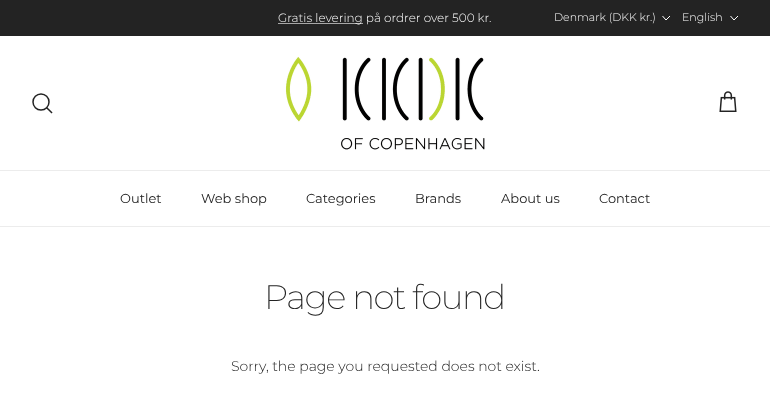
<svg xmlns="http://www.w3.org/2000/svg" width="770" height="402">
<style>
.a{font:300 12px Montserrat;fill:#fff}
.b{font:300 11px Montserrat;fill:#fff}
.c{font:13px Montserrat;fill:#232323}
.d{font:200 34px Montserrat;letter-spacing:-1.4px;fill:#232323}
.e{font:300 14px Montserrat;fill:#232323}
</style>
<rect width="100%" height="100%" fill="#fff"/>
<path fill="#232323" d="M0 0h770v36H0z"/>
<path fill="#a7a7a7" d="M278 23h85v1H278z"/>
<path fill="none" stroke="#fff" d="M670 16l-4 4l-3.5-4"/>
<path fill="none" stroke="#fff" d="M738 16l-4 4l-3.5-4"/>
<path fill="#ececec" d="M0 170h770v1H0z"/>
<circle fill="none" stroke="#232323" stroke-width="1.5" cx="41" cy="102" r="8"/>
<path fill="none" stroke="#232323" stroke-width="1.5" stroke-linecap="square" d="M47 108l4.5 4.5"/>
<image href="1.png" x="285" y="56" width="200" height="94"/>
<image href="2.png" x="719" y="91" width="18" height="21"/>
<path fill="#ececec" d="M0 226h770v1H0z"/>
<text class="a" x="278" y="22">Gratis levering på ordrer over 500 kr.</text>
<text class="b" x="554" y="21">Denmark (DKK kr.)</text>
<text class="b" x="682" y="21">English</text>
<text class="c" x="120" y="203">Outlet</text>
<text class="c" x="201" y="203">Web shop</text>
<text class="c" x="306" y="203">Categories</text>
<text class="c" x="415" y="203">Brands</text>
<text class="c" x="501" y="203">About us</text>
<text class="c" x="599" y="203">Contact</text>
<text class="d" x="264" y="309">Page not found</text>
<text class="e" x="231" y="371">Sorry, the page you requested does not exist.</text>
</svg>
